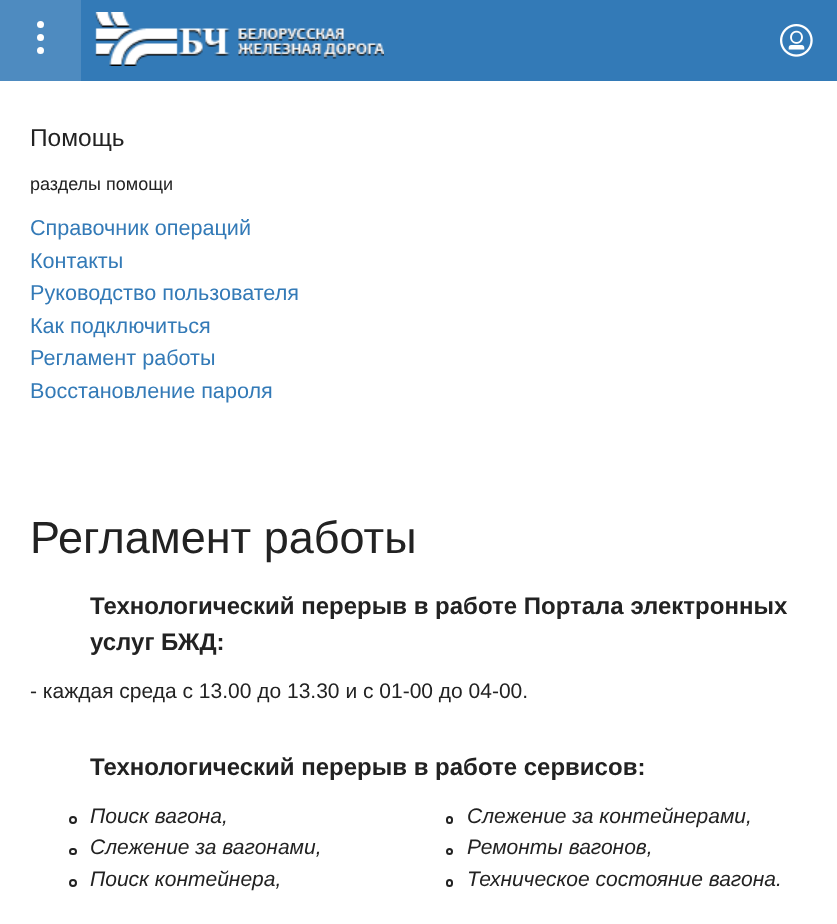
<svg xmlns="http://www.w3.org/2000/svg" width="837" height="924">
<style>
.a{font:24.5px Liberation Sans;fill:#222}
.b{font:18px Liberation Sans;fill:#222}
.c{font:21.6px Liberation Sans;fill:#337ab7}
.d{font:45px Liberation Sans;fill:#222}
.e{font:bold 24px Liberation Sans;fill:#222}
.f{font:21px Liberation Sans;fill:#222}
.g{font:italic 21px Liberation Sans;fill:#222}
</style>
<rect width="100%" height="100%" fill="#fff"/>
<path fill="#337ab7" d="M81 0h756v81H81z"/>
<path fill="#4e8bc0" d="M0 0h81v81H0z"/>
<circle fill="#fff" cx="40.5" cy="24.5" r="3.5"/>
<circle fill="#fff" cx="40.5" cy="37.5" r="3.5"/>
<circle fill="#fff" cx="40.5" cy="50.5" r="3.5"/>
<image href="1.png" x="95" y="12" width="289" height="54"/>
<image href="2.png" x="780" y="24" width="33" height="33"/>
<circle fill="none" stroke="#222" stroke-width="2" cx="73" cy="820" r="3"/>
<rect fill="none" stroke="#222" stroke-width="2" x="70" y="849" width="6" height="5" rx="2.5"/>
<circle fill="none" stroke="#222" stroke-width="2" cx="73" cy="883" r="3"/>
<rect fill="none" stroke="#222" stroke-width="2" x="447" y="817" width="5" height="6" rx="2.5"/>
<circle fill="none" stroke="#222" stroke-width="2" cx="449.5" cy="851.5" r="2.5"/>
<rect fill="none" stroke="#222" stroke-width="2" x="447" y="880" width="5" height="6" rx="2.5"/>
<text class="a" x="30" y="146">Помощь</text>
<text class="b" x="30" y="190">разделы помощи</text>
<text class="c" x="30" y="235">Справочник операций</text>
<text class="c" x="30" y="268">Контакты</text>
<text class="c" x="30" y="300">Руководство пользователя</text>
<text class="c" x="30" y="333">Как подключиться</text>
<text class="c" x="30" y="365">Регламент работы</text>
<text class="c" x="30" y="398">Вoсстановление пароля</text>
<text class="d" x="30" y="553">Регламент работы</text>
<text class="e" x="90" y="614">Технологический перерыв в работе Портала электронных</text>
<text class="e" x="90" y="650">услуг БЖД:</text>
<text class="f" x="30" y="698">- каждая среда с 13.00 до 13.30 и с 01-00 до 04-00.</text>
<text class="e" x="90" y="775">Технологический перерыв в работе сервисов:</text>
<text class="g" x="90" y="823">Поиск вагона,</text>
<text class="g" x="90" y="854">Слежение за вагонами,</text>
<text class="g" x="90" y="886">Поиск контейнера,</text>
<text class="g" x="467" y="823">Слежение за контейнерами,</text>
<text class="g" x="467" y="854">Ремонты вагонов,</text>
<text class="g" x="467" y="886">Техническое состояние вагона.</text>
</svg>
